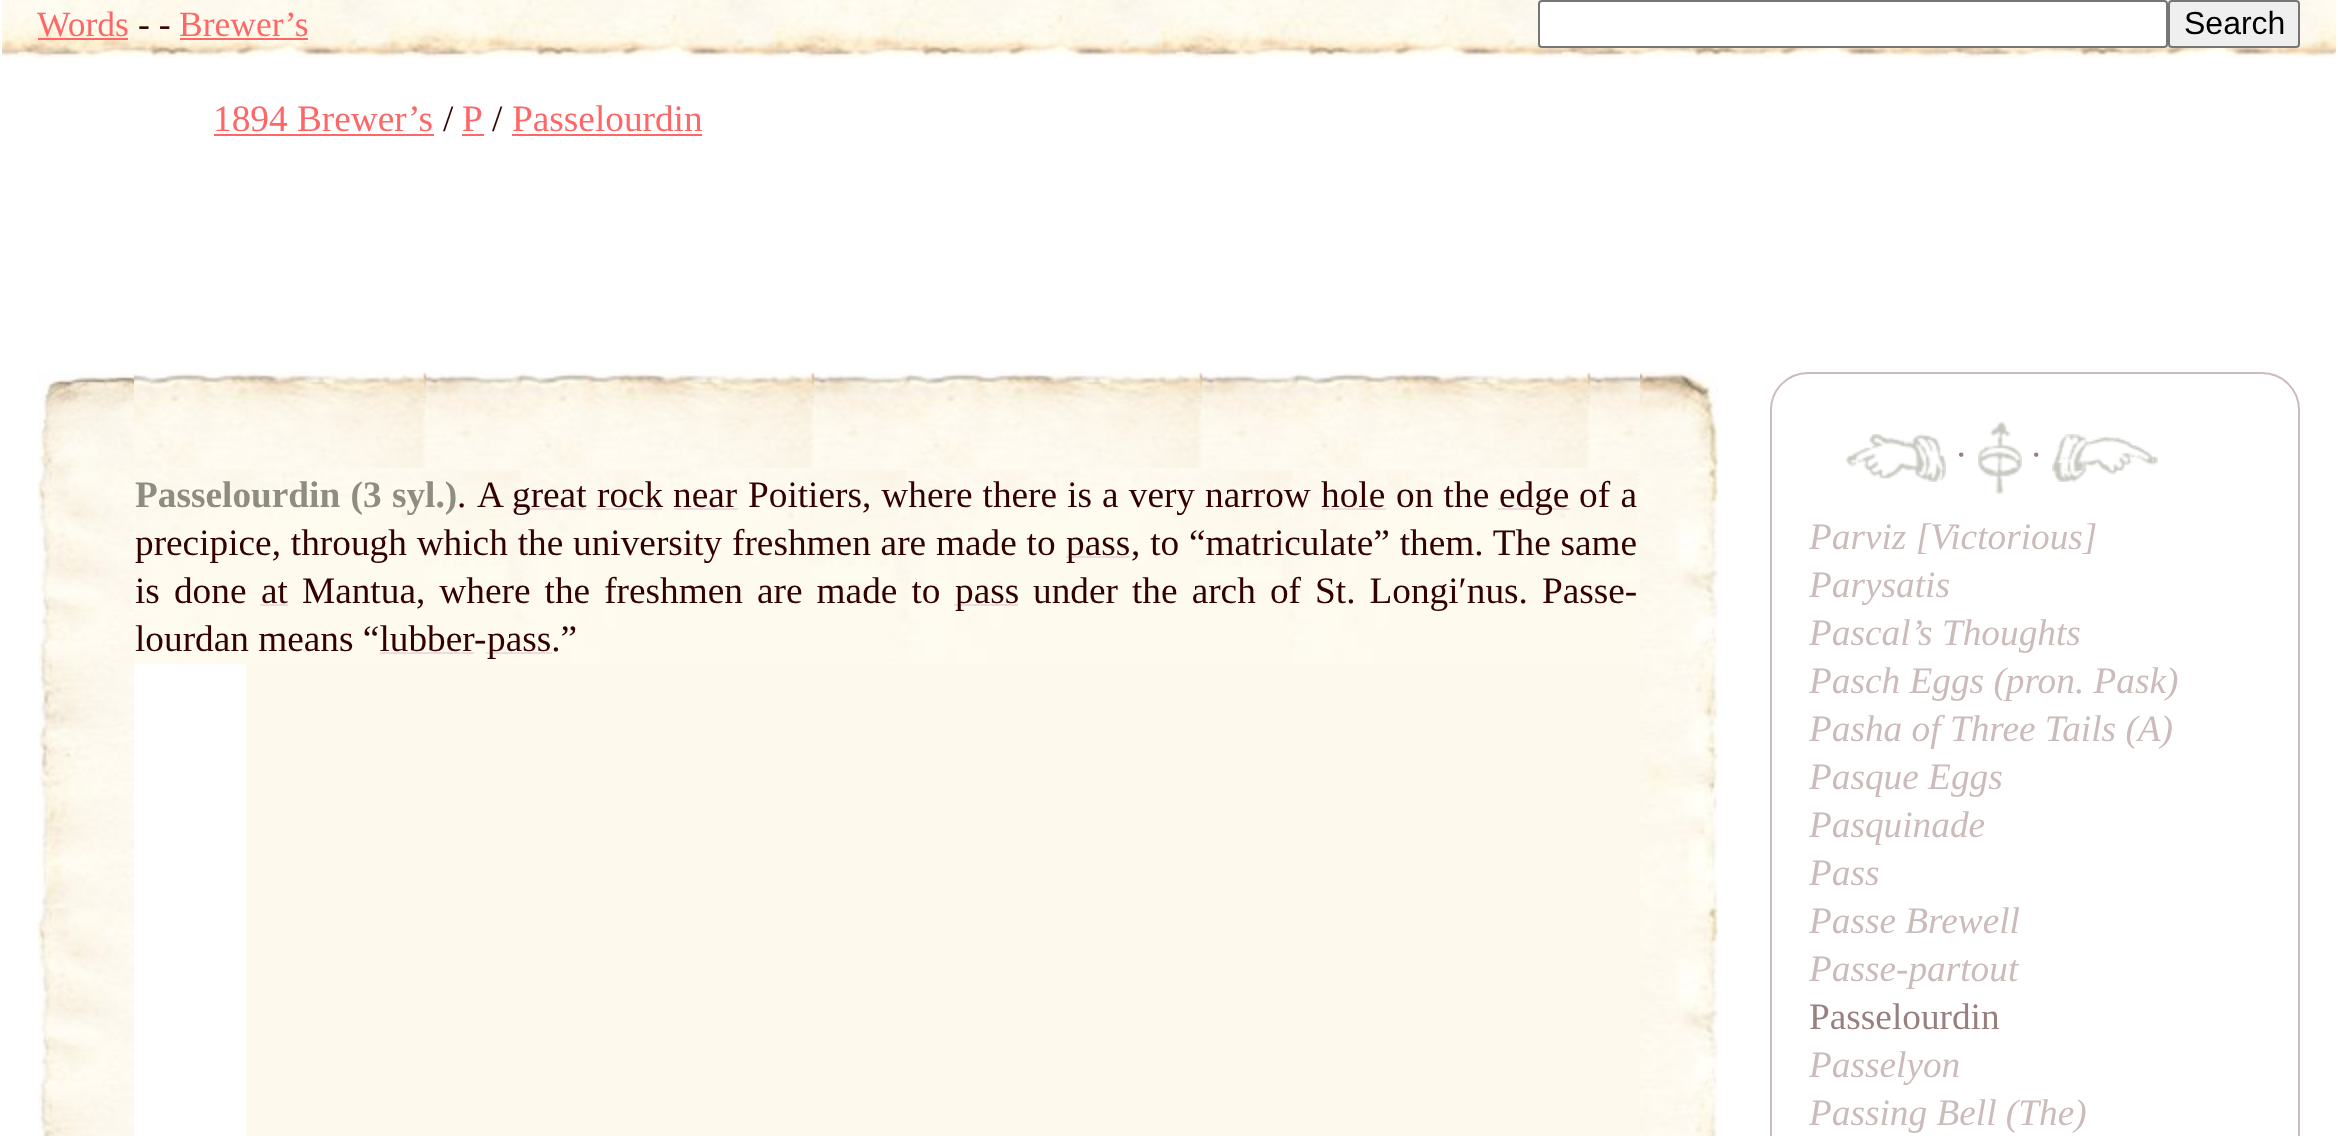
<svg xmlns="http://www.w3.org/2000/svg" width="2338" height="1136">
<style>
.a{font:35.5px Liberation Serif;fill:#f66}
.b{font:35.5px Liberation Serif;fill:#300}
.c{font:32px Liberation Sans;fill:#000}
.d{font:37.3px Liberation Serif;fill:#f66}
.e{font:37.3px Liberation Serif;fill:#300}
.f{font:bold 37.3px Liberation Serif;fill:#8e8d80}
.g{font:37.3px Liberation Serif;fill:#998080}
.h{font:italic 37.3px Liberation Serif;fill:#cbb}
</style>
<rect width="100%" height="100%" fill="#fff"/>
<image href="1.png" x="2" y="0" width="2334" height="58"/>
<path fill="#f66" d="M38 38h90v2H38z"/>
<path fill="#f66" d="M180 38h128v2H180z"/>
<rect fill="#fff" stroke="#767676" stroke-width="2" x="1539" y="1" width="628" height="46" rx="3"/>
<rect fill="#efefef" stroke="#767676" stroke-width="2" x="2169" y="1" width="130" height="46" rx="3"/>
<path fill="#f66" d="M214 134h220v2H214z"/>
<path fill="#f66" d="M462 134h22v2H462z"/>
<path fill="#f66" d="M512 134h190v2H512z"/>
<image href="2.png" x="38" y="372" width="96" height="96"/>
<image href="3.png" x="1640" y="372" width="78" height="96"/>
<image href="4.png" x="134" y="372" width="1506" height="96"/>
<image href="5.png" x="38" y="468" width="96" height="668"/>
<image href="6.png" x="1640" y="468" width="78" height="668"/>
<image href="7.png" x="134" y="468" width="1506" height="196"/>
<path fill="none" stroke="#fffbf0" stroke-width="2" stroke-dasharray="2 2" d="M134 469h1506"/>
<path fill="none" stroke="#fffbf0" stroke-width="2" stroke-dasharray="2 2" d="M1639 468v196"/>
<path fill="none" stroke="#fffbf0" stroke-width="2" stroke-dasharray="2 2" d="M134 663h1506"/>
<path fill="none" stroke="#fffbf0" stroke-width="2" stroke-dasharray="2 2" d="M135 468v196"/>
<path fill="#edd" d="M512 508h74v2H512z"/>
<path fill="#edd" d="M596 508h66v2H596z"/>
<path fill="#edd" d="M674 508h64v2H674z"/>
<path fill="#edd" d="M1322 508h64v2H1322z"/>
<path fill="#edd" d="M1498 508h72v2H1498z"/>
<path fill="#edd" d="M1066 556h64v2H1066z"/>
<path fill="#edd" d="M260 604h28v2H260z"/>
<path fill="#edd" d="M954 604h64v2H954z"/>
<path fill="#edd" d="M380 652h94v2H380z"/>
<path fill="#edd" d="M486 652h66v2H486z"/>
<path fill="#fdf9ed" d="M246 664h1394v472H246z"/>
<rect fill="none" stroke="#cbb" stroke-width="2" x="1771" y="373" width="528" height="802" rx="37"/>
<image href="8.png" x="1846" y="434" width="100" height="48"/>
<image href="9.png" x="1978" y="422" width="44" height="72"/>
<image href="10.png" x="2052" y="434" width="106" height="48"/>
<text class="a" x="37" y="36">Words</text>
<text class="b" x="138" y="36">- -</text>
<text class="a" x="179" y="36">Brewer’s</text>
<text class="c" x="2184" y="34">Search</text>
<text class="d" x="213" y="131">1894 Brewer’s</text>
<text class="e" x="443" y="131">/</text>
<text class="d" x="462" y="131">P</text>
<text class="e" x="492" y="131">/</text>
<text class="d" x="512" y="131">Passelourdin</text>
<text class="f" x="135" y="507" word-spacing="1">Passelourdin (3 syl.)</text>
<text class="e" x="457" y="507">.</text>
<text class="e" x="477" y="507">A</text>
<text class="e" x="512" y="507">great</text>
<text class="e" x="597" y="507">rock</text>
<text class="e" x="673" y="507">near</text>
<text class="e" x="748" y="507" word-spacing="0.75">Poitiers, where there is a very narrow</text>
<text class="e" x="1321" y="507">hole</text>
<text class="e" x="1396" y="507" word-spacing="1">on the</text>
<text class="e" x="1499" y="507">edge</text>
<text class="e" x="1579" y="507" word-spacing="1">of a</text>
<text class="e" x="135" y="555" word-spacing="0.5">precipice, through which the university freshmen are made to</text>
<text class="e" x="1066" y="555">pass</text>
<text class="e" x="1131" y="555" word-spacing="0.5">, to “matriculate” them. The same</text>
<text class="e" x="135" y="603" word-spacing="4.75">is done</text>
<text class="e" x="261" y="603">at</text>
<text class="e" x="302" y="603" word-spacing="4.75">Mantua, where the freshmen are made to</text>
<text class="e" x="955" y="603">pass</text>
<text class="e" x="1033" y="603" word-spacing="4.75">under the arch of St. Longiʹnus. Passe-</text>
<text class="e" x="135" y="651">lourdan means “lubber</text>
<text class="e" x="474" y="651">-</text>
<text class="e" x="487" y="651">pass.”</text>
<text class="g" x="1955" y="467">·</text>
<text class="g" x="2030" y="467">·</text>
<text class="h" x="1809" y="549">Parviz [Victorious]</text>
<text class="h" x="1809" y="597">Parysatis</text>
<text class="h" x="1809" y="645">Pascal’s Thoughts</text>
<text class="h" x="1809" y="693">Pasch Eggs (pron. Pask)</text>
<text class="h" x="1809" y="741">Pasha of Three Tails (A)</text>
<text class="h" x="1809" y="789">Pasque Eggs</text>
<text class="h" x="1809" y="837">Pasquinade</text>
<text class="h" x="1809" y="885">Pass</text>
<text class="h" x="1809" y="933">Passe Brewell</text>
<text class="h" x="1809" y="981">Passe-partout</text>
<text class="g" x="1809" y="1029">Passelourdin</text>
<text class="h" x="1809" y="1077">Passelyon</text>
<text class="h" x="1809" y="1125">Passing Bell (The)</text>
</svg>
